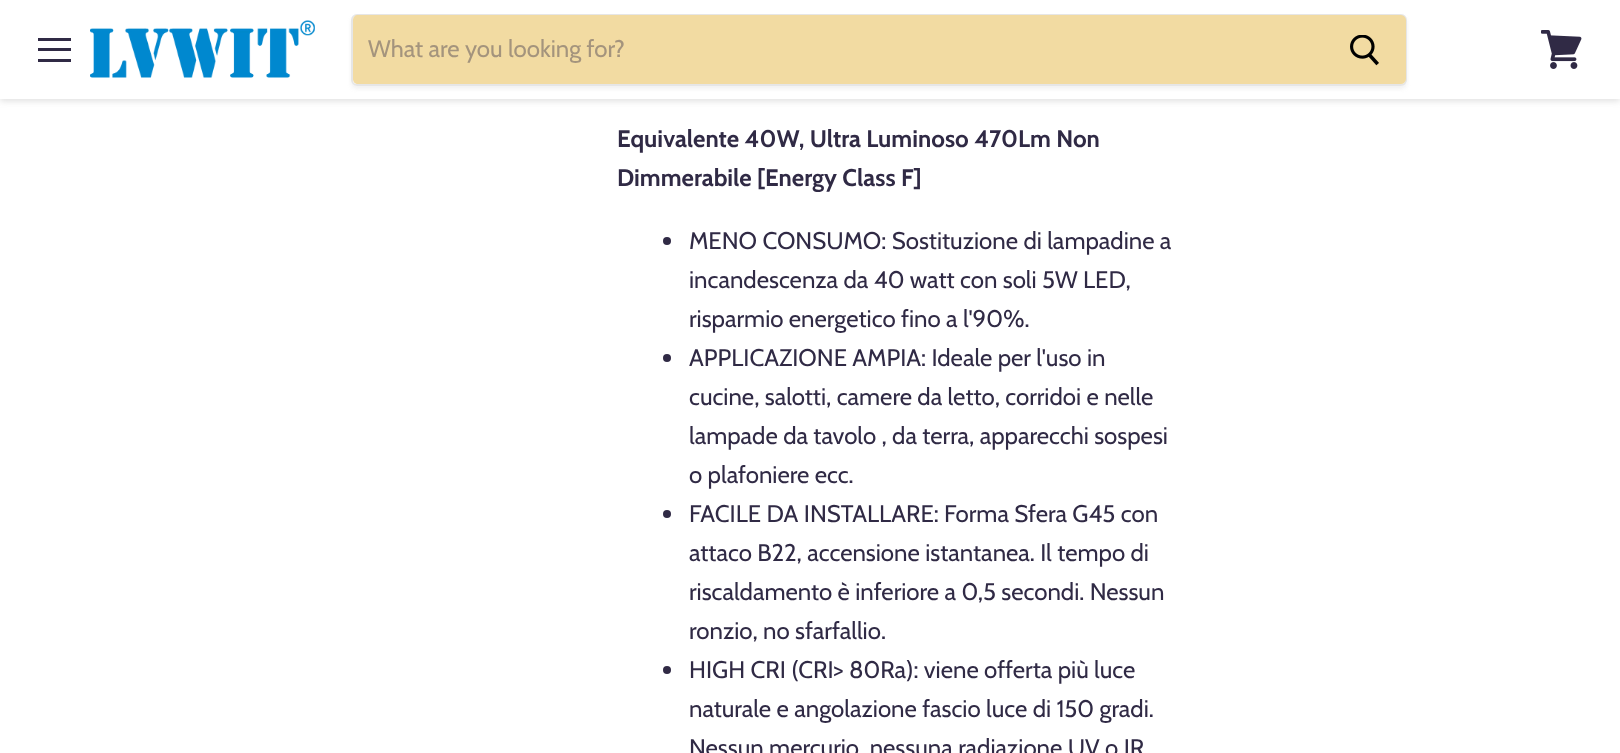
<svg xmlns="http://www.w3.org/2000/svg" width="1620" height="753">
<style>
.a{font:24px Cabin;fill:#a4947d}
.b{font:bold 24px Cabin;fill:#302a45}
.c{font:24px Cabin;fill:#302a45}
</style>
<defs>
<clipPath id="clip1"><path d="M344 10h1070v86h-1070zm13 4h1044c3.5 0 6 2.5 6 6v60c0 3.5-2.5 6-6 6h-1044c-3.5 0-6-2.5-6-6v-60c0-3.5 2.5-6 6-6z" clip-rule="evenodd"/></clipPath>
</defs>
<rect width="100%" height="100%" fill="#fff"/>
<path fill="#80808040" filter="blur(3px)" d="M0 2h1620v99H0z"/>
<path fill="#fff" d="M0 0h1620v99H0z"/>
<path fill="#302a45" d="M38 38h33v3H38z"/>
<path fill="#302a45" d="M38 48h33v3H38z"/>
<path fill="#302a45" d="M38 59h33v3H38z"/>
<image href="1.png" x="90" y="20" width="225" height="58"/>
<g clip-path="url(#clip1)">
<rect fill="#8080801c" filter="blur(2px)" x="351" y="17" width="1056" height="72" rx="6"/>
</g>
<rect fill="none" stroke="#80808033" stroke-width="2" x="352" y="15" width="1054" height="70" rx="5"/>
<path fill="#f2dba2" d="M358 15h967v69h-967c-3 0-5-2-5-5v-59c0-3 2-5 5-5z"/>
<path fill="#f2dba2" stroke="#f2dba2" stroke-width="2" d="M1326 16h75c2 0 4 2 4 4v59c0 2-2 4-4 4h-75z"/>
<image href="2.png" x="1350" y="35" width="29" height="31"/>
<image href="3.png" x="1541" y="30" width="41" height="39"/>
<circle fill="#302a45" cx="667" cy="241" r="4"/>
<circle fill="#302a45" cx="667" cy="358" r="4"/>
<circle fill="#302a45" cx="667" cy="514" r="4"/>
<circle fill="#302a45" cx="667" cy="670" r="4"/>
<text class="a" x="368" y="57">What are you looking for?</text>
<text class="b" x="617" y="147">Equivalente 40W, Ultra Luminoso 470Lm Non</text>
<text class="b" x="617" y="186">Dimmerabile [Energy Class F]</text>
<text class="c" x="689" y="249">MENO CONSUMO: Sostituzione di lampadine a</text>
<text class="c" x="689" y="288">incandescenza da 40 watt con soli 5W LED,</text>
<text class="c" x="689" y="327">risparmio energetico fino a l'90%.</text>
<text class="c" x="689" y="366">APPLICAZIONE AMPIA: Ideale per l'uso in</text>
<text class="c" x="689" y="405">cucine, salotti, camere da letto, corridoi e nelle</text>
<text class="c" x="689" y="444">lampade da tavolo , da terra, apparecchi sospesi</text>
<text class="c" x="689" y="483">o plafoniere ecc.</text>
<text class="c" x="689" y="522">FACILE DA INSTALLARE: Forma Sfera G45 con</text>
<text class="c" x="689" y="561">attaco B22, accensione istantanea. Il tempo di</text>
<text class="c" x="689" y="600">riscaldamento è inferiore a 0,5 secondi. Nessun</text>
<text class="c" x="689" y="639">ronzio, no sfarfallio.</text>
<text class="c" x="689" y="678">HIGH CRI (CRI&gt; 80Ra): viene offerta più luce</text>
<text class="c" x="689" y="717">naturale e angolazione fascio luce di 150 gradi.</text>
<text class="c" x="689" y="756">Nessun mercurio, nessuna radiazione UV o IR</text>
</svg>
